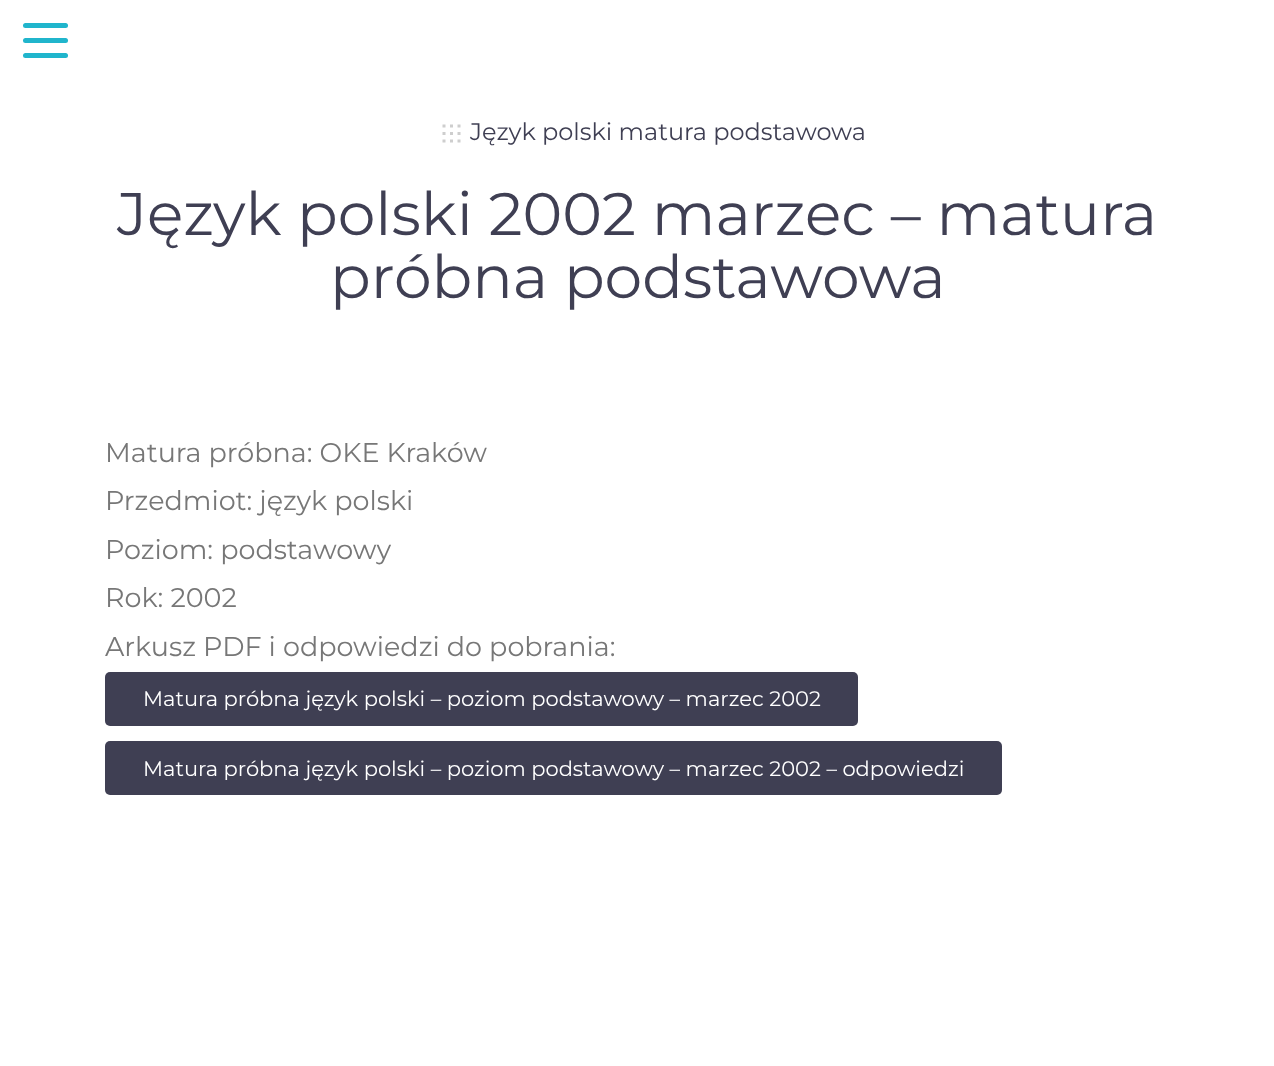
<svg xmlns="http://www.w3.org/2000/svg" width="1274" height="1066">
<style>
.a{font:24px Montserrat;fill:#3f3f53}
.b{font:60px Montserrat;fill:#3f3f53}
.c{font:27px Montserrat;fill:#777}
.d{font:21px Montserrat;fill:#fff}
</style>
<rect width="100%" height="100%" fill="#fff"/>
<rect fill="#20b5cc" x="23" y="38" width="45" height="5" rx="2.5"/>
<rect fill="#20b5cc" x="23" y="23" width="45" height="5" rx="2.5"/>
<rect fill="#20b5cc" x="23" y="53" width="45" height="5" rx="2.5"/>
<image href="1.png" x="442" y="124" width="19" height="19"/>
<rect fill="#3f3f53" x="105" y="672" width="753" height="54" rx="5"/>
<rect fill="#3f3f53" x="105" y="741" width="897" height="54" rx="5"/>
<text class="a" x="470" y="140">Język polski matura podstawowa</text>
<text class="b" x="117" y="235">Język polski 2002 marzec – matura</text>
<text class="b" x="330" y="298">próbna podstawowa</text>
<text class="c" x="105" y="462">Matura próbna: OKE Kraków</text>
<text class="c" x="105" y="510">Przedmiot: język polski</text>
<text class="c" x="105" y="559">Poziom: podstawowy</text>
<text class="c" x="105" y="607">Rok: 2002</text>
<text class="c" x="105" y="656">Arkusz PDF i odpowiedzi do pobrania:</text>
<text class="d" x="143" y="706">Matura próbna język polski – poziom podstawowy – marzec 2002</text>
<text class="d" x="143" y="776">Matura próbna język polski – poziom podstawowy – marzec 2002 – odpowiedzi</text>
</svg>
